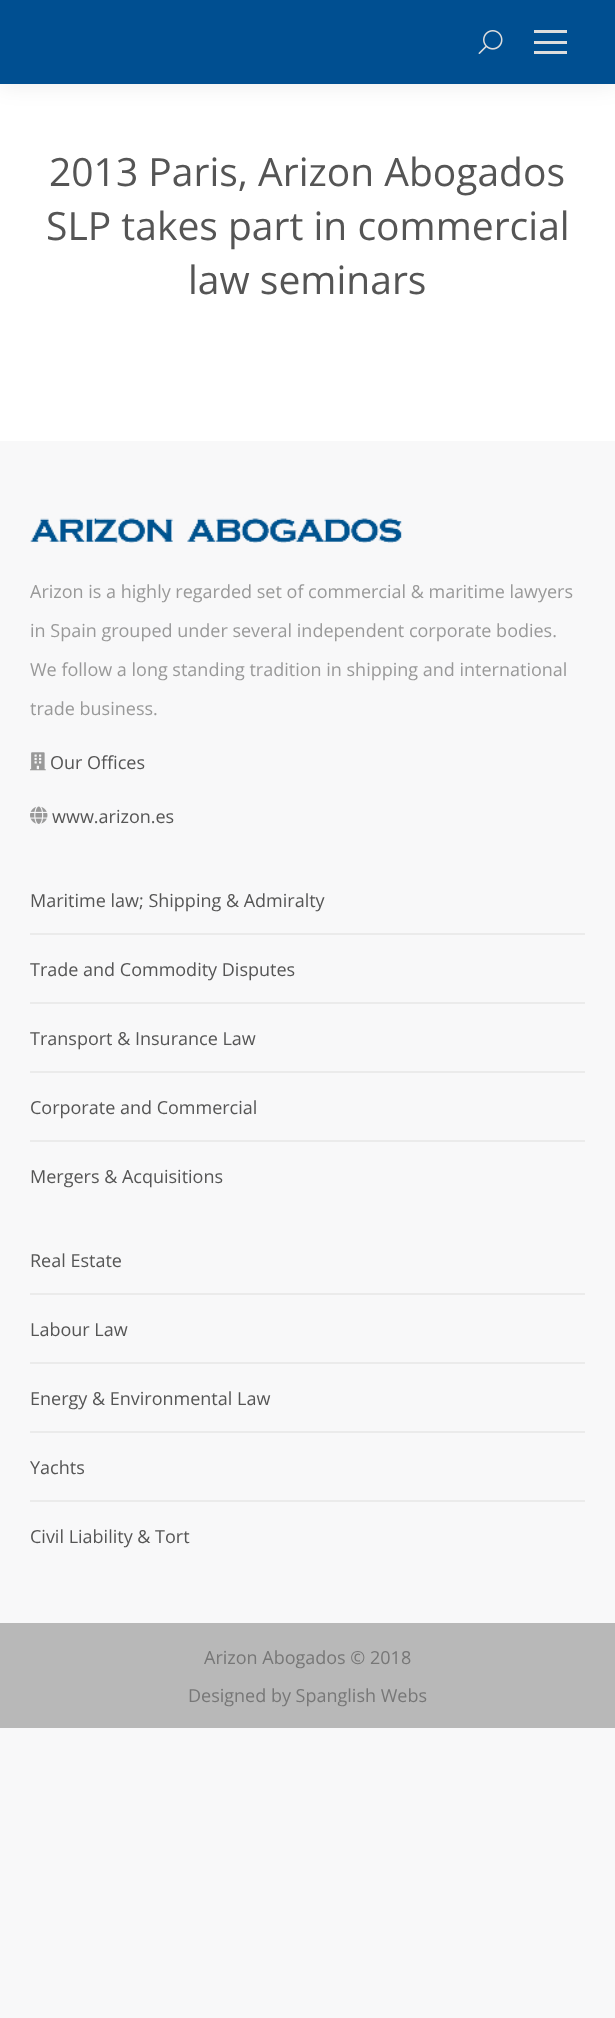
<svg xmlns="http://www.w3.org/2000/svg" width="615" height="2018">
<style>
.a{font:39px Open Sans;fill:#555}
.b{font:18px Open Sans;fill:#999}
.c{font:18px Open Sans;fill:#555}
.d{font:18px Open Sans;fill:#777}
</style>
<rect width="100%" height="100%" fill="#f8f8f9"/>
<path fill="#fff" d="M0 84h615v357H0z"/>
<path fill="#00000012" filter="blur(11px)" d="M-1 -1h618v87H-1z"/>
<path fill="#004f91" d="M0 0h615v84H0z"/>
<image href="1.png" x="478" y="30" width="25" height="24"/>
<path fill="#ddd" d="M534 30h33v3H534z"/>
<path fill="#ddd" d="M534 41h33v3H534z"/>
<path fill="#ddd" d="M534 51h33v3H534z"/>
<image href="2.png" x="30" y="516" width="372" height="27"/>
<image href="3.png" x="30" y="752" width="16" height="19"/>
<image href="4.png" x="30" y="806" width="18" height="18"/>
<path fill="#ebebeb" d="M30 933h555v2H30z"/>
<path fill="#ebebeb" d="M30 1002h555v2H30z"/>
<path fill="#ebebeb" d="M30 1071h555v2H30z"/>
<path fill="#ebebeb" d="M30 1140h555v2H30z"/>
<path fill="#ebebeb" d="M30 1293h555v2H30z"/>
<path fill="#ebebeb" d="M30 1362h555v2H30z"/>
<path fill="#ebebeb" d="M30 1431h555v2H30z"/>
<path fill="#ebebeb" d="M30 1500h555v2H30z"/>
<path fill="#b8b8b8" d="M0 1623h615v105H0z"/>
<text class="a" x="49" y="186">2013 Paris, Arizon Abogados</text>
<text class="a" x="46" y="240">SLP takes part in commercial</text>
<text class="a" x="188" y="294">law seminars</text>
<text class="b" x="30" y="598">Arizon is a highly regarded set of commercial &amp; maritime lawyers</text>
<text class="b" x="30" y="637">in Spain grouped under several independent corporate bodies.</text>
<text class="b" x="30" y="676">We follow a long standing tradition in shipping and international</text>
<text class="b" x="30" y="715">trade business.</text>
<text class="c" x="50" y="769">Our Offices</text>
<text class="c" x="52" y="823">www.arizon.es</text>
<text class="c" x="30" y="907">Maritime law; Shipping &amp; Admiralty</text>
<text class="c" x="30" y="976">Trade and Commodity Disputes</text>
<text class="c" x="30" y="1045">Transport &amp; Insurance Law</text>
<text class="c" x="30" y="1114">Corporate and Commercial</text>
<text class="c" x="30" y="1183">Mergers &amp; Acquisitions</text>
<text class="c" x="30" y="1267">Real Estate</text>
<text class="c" x="30" y="1336">Labour Law</text>
<text class="c" x="30" y="1405">Energy &amp; Environmental Law</text>
<text class="c" x="30" y="1474">Yachts</text>
<text class="c" x="30" y="1543">Civil Liability &amp; Tort</text>
<text class="d" x="204" y="1664">Arizon Abogados © 2018</text>
<text class="d" x="188" y="1702">Designed by Spanglish Webs</text>
</svg>
